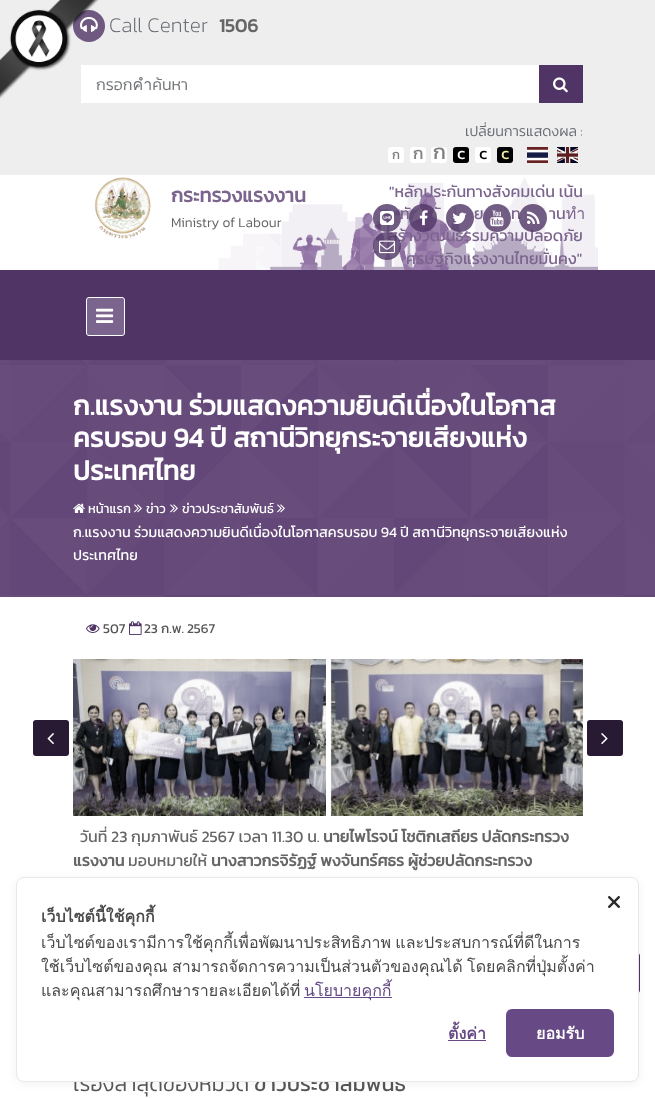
<svg xmlns="http://www.w3.org/2000/svg" width="655" height="1098">
<style>
.a{font:200 21px Kanit;fill:#696c73}
.b{font:bold 19px Kanit;fill:#666}
.c{font:300 16px Kanit;fill:#717476}
.d{font:300 14.4px Kanit;fill:#696c73}
.e{font:13px Kanit;fill:#808080}
.f{font:17px Kanit;fill:#808080}
.g{font:21px Kanit;fill:#808080}
.h{font:17px Kanit;fill:#fff}
.i{font:17px Kanit;fill:#000}
.j{font:17px Kanit;fill:#f2f2a6}
.k{font:bold 19.75px Kanit;fill:#7b648d}
.l{font:300 13.75px Kanit;fill:#666}
.m{font:16px Kanit;fill:#7b648d}
.n{font:bold 27.25px Kanit;fill:#fff}
.o{font:13px Kanit;fill:#fff}
.p{font:14.4px Kanit;fill:#fff}
.q{font:13.5px Kanit;fill:#555}
.r{font:16px Kanit;fill:#666}
.s{font:bold 16px Kanit;fill:#666}
.t{font:300 21.5px Kanit;fill:#555}
.u{font:21.5px Kanit;fill:#555}
.v{font:bold 16px Loma;fill:#4a4a4a}
.w{font:16px Loma;fill:#4a4a4a}
.x{font:16px Loma;fill:#664985}
.y{font:bold 16px Loma;fill:#664985}
.z{font:bold 16px Loma;fill:#fff}
</style>
<rect width="100%" height="100%" fill="#fff"/>
<path fill="#eee" d="M0 0h655v175H0z"/>
<circle fill="#6f5980" cx="89" cy="26" r="16"/>
<image href="1.png" x="80" y="16" width="18" height="16"/>
<path fill="#fff" d="M81 65h458v38H81z"/>
<path fill="#4f3465" d="M539 65h44v38H539z"/>
<image href="2.png" x="553" y="77" width="15" height="16"/>
<rect fill="#fff" x="388" y="147" width="16" height="16" rx="3"/>
<rect fill="#fff" x="410" y="147" width="16" height="16" rx="3"/>
<rect fill="#fff" x="431" y="147" width="16" height="16" rx="3"/>
<rect fill="#000" x="453" y="147" width="16" height="16" rx="3"/>
<rect fill="#fff" x="475" y="147" width="16" height="16" rx="3"/>
<rect fill="#000" x="497" y="147" width="16" height="16" rx="3"/>
<image href="3.png" x="527" y="147" width="21" height="16"/>
<image href="4.png" x="557" y="147" width="21" height="16"/>
<image href="6.png" x="218" y="177" width="380" height="93"/>
<image href="7.png" x="94" y="177" width="57" height="62"/>
<path fill="#4f3465" d="M0 270h655v90H0z"/>
<rect fill="#7b648d" stroke="#fff" x="86.5" y="297.5" width="38" height="38" rx="2.5"/>
<image href="14.png" x="96" y="308" width="18" height="15"/>
<image href="15.png" x="0" y="360" width="655" height="237"/>
<image href="16.png" x="73" y="503" width="12" height="10"/>
<image href="17.png" x="134" y="504" width="8" height="9"/>
<image href="18.png" x="170" y="504" width="8" height="9"/>
<image href="19.png" x="277" y="504" width="8" height="9"/>
<image href="20.png" x="86" y="624" width="14" height="9"/>
<image href="21.png" x="129" y="621" width="13" height="14"/>
<image href="22.png" x="73" y="659" width="253" height="157"/>
<image href="23.png" x="330" y="659" width="253" height="157"/>
<rect fill="#271a32" x="33" y="720" width="36" height="36" rx="3"/>
<image href="24.png" x="47" y="733" width="7" height="12"/>
<rect fill="#271a32" x="587" y="720" width="36" height="36" rx="3"/>
<image href="25.png" x="601" y="733" width="7" height="12"/>
<rect fill="#4f3465" x="600" y="953" width="40" height="40" rx="3"/>
<rect fill="#0000000d" filter="blur(4px)" x="16" y="879" width="623" height="205" rx="8"/>
<text class="a" x="109" y="32">Call Center</text>
<text class="b" x="219" y="32">1506</text>
<text class="c" x="96" y="90">กรอกคำค้นหา</text>
<text class="d" x="465" y="136">เปลี่ยนการแสดงผล :</text>
<text class="e" x="392" y="159">ก</text>
<text class="f" x="413" y="159">ก</text>
<text class="g" x="433" y="159">ก</text>
<text class="h" x="457" y="159">c</text>
<text class="i" x="479" y="159">c</text>
<text class="j" x="501" y="159">c</text>
<image href="5.png" x="0" y="0" width="99" height="99"/>
<text class="k" x="171" y="202">กระทรวงแรงงาน</text>
<text class="l" x="171" y="227">Ministry of Labour</text>
<text class="m" x="389" y="197">"หลักประกันทางสังคมเด่น เน้น</text>
<text class="m" x="400" y="219">ทั</text>
<text class="m" x="440" y="219">ั</text>
<text class="m" x="549" y="219">านทำ</text>
<text class="m" x="474" y="219">ย</text>
<text class="m" x="511" y="219">ท</text>
<text class="m" x="388" y="241">สร้างวัฒนธรรมความปลอดภัย</text>
<text class="m" x="406" y="264">ศรษฐกิจแรงงานไทยมั่นคง"</text>
<circle fill="#4f3465cc" cx="387" cy="218" r="14"/>
<image href="8.png" x="380" y="211" width="15" height="14"/>
<circle fill="#4f3465cc" cx="423" cy="218" r="14"/>
<image href="9.png" x="419" y="210" width="9" height="16"/>
<circle fill="#4f3465cc" cx="460" cy="218" r="14"/>
<image href="10.png" x="452" y="212" width="15" height="12"/>
<circle fill="#4f3465cc" cx="497" cy="218" r="14"/>
<image href="11.png" x="490" y="210" width="14" height="17"/>
<circle fill="#4f3465cc" cx="533" cy="218" r="14"/>
<image href="12.png" x="527" y="211" width="13" height="13"/>
<circle fill="#4f3465cc" cx="387" cy="246" r="14"/>
<image href="13.png" x="379" y="240" width="16" height="14"/>
<text class="n" x="73" y="415">ก.แรงงาน ร่วมแสดงความยินดีเนื่องในโอกาส</text>
<text class="n" x="73" y="447">ครบรอบ 94 ปี สถานีวิทยุกระจายเสียงแห่ง</text>
<text class="n" x="73" y="480">ประเทศไทย</text>
<text class="o" x="88" y="513">หน้าแรก</text>
<text class="o" x="146" y="513">ข่าว</text>
<text class="o" x="182" y="513">ข่าวประชาสัมพันธ์</text>
<text class="p" x="73" y="537">ก.แรงงาน ร่วมแสดงความยินดีเนื่องในโอกาสครบรอบ 94 ปี สถานีวิทยุกระจายเสียงแห่ง</text>
<text class="p" x="73" y="560">ประเทศไทย</text>
<text class="q" x="103" y="633">507</text>
<text class="q" x="144" y="633">23 ก.พ. 2567</text>
<text class="r" x="80" y="842">วันที่ 23 กุมภาพันธ์ 2567 เวลา 11.30 น.</text>
<text class="s" x="323" y="842">นายไพโรจน์ โชติกเสถียร ปลัดกระทรวง</text>
<text class="s" x="73" y="866">แรงงาน</text>
<text class="r" x="128" y="866">มอบหมายให้</text>
<text class="s" x="211" y="866">นางสาวกรจิรัฏฐ์ พงจันทร์ศธร ผู้ช่วยปลัดกระทรวง</text>
<text class="t" x="73" y="1091">เรื่องล่าสุดของหมวด</text>
<text class="u" x="254" y="1091">ข่าวประชาสัมพันธ์</text>
<rect fill="#fff" stroke="#e8e8e8" x="16.5" y="877.5" width="622" height="204" rx="7.5"/>
<image href="26.png" x="608" y="896" width="12" height="12"/>
<text class="v" x="41" y="922">เว็บไซต์นี้ใช้คุกกี้</text>
<text class="w" x="41" y="948" word-spacing="-1">เว็บไซต์ของเรามีการใช้คุกกี้เพื่อพัฒนาประสิทธิภาพ และประสบการณ์ที่ดีในการ</text>
<text class="w" x="41" y="972" word-spacing="-1">ใช้เว็บไซต์ของคุณ สามารถจัดการความเป็นส่วนตัวของคุณได้ โดยคลิกที่ปุ่มตั้งค่า</text>
<text class="w" x="41" y="996">และคุณสามารถศึกษารายละเอียดได้ที่</text>
<path fill="#664985" d="M304 997h88v1H304z"/>
<text class="x" x="304" y="996">นโยบายคุกกี้</text>
<text class="y" x="448" y="1039">ตั้งค่า</text>
<path fill="#664985" d="M448 1040h38v1H448z"/>
<rect fill="#664985" x="506" y="1009" width="108" height="48" rx="6"/>
<text class="z" x="536" y="1039">ยอมรับ</text>
</svg>
